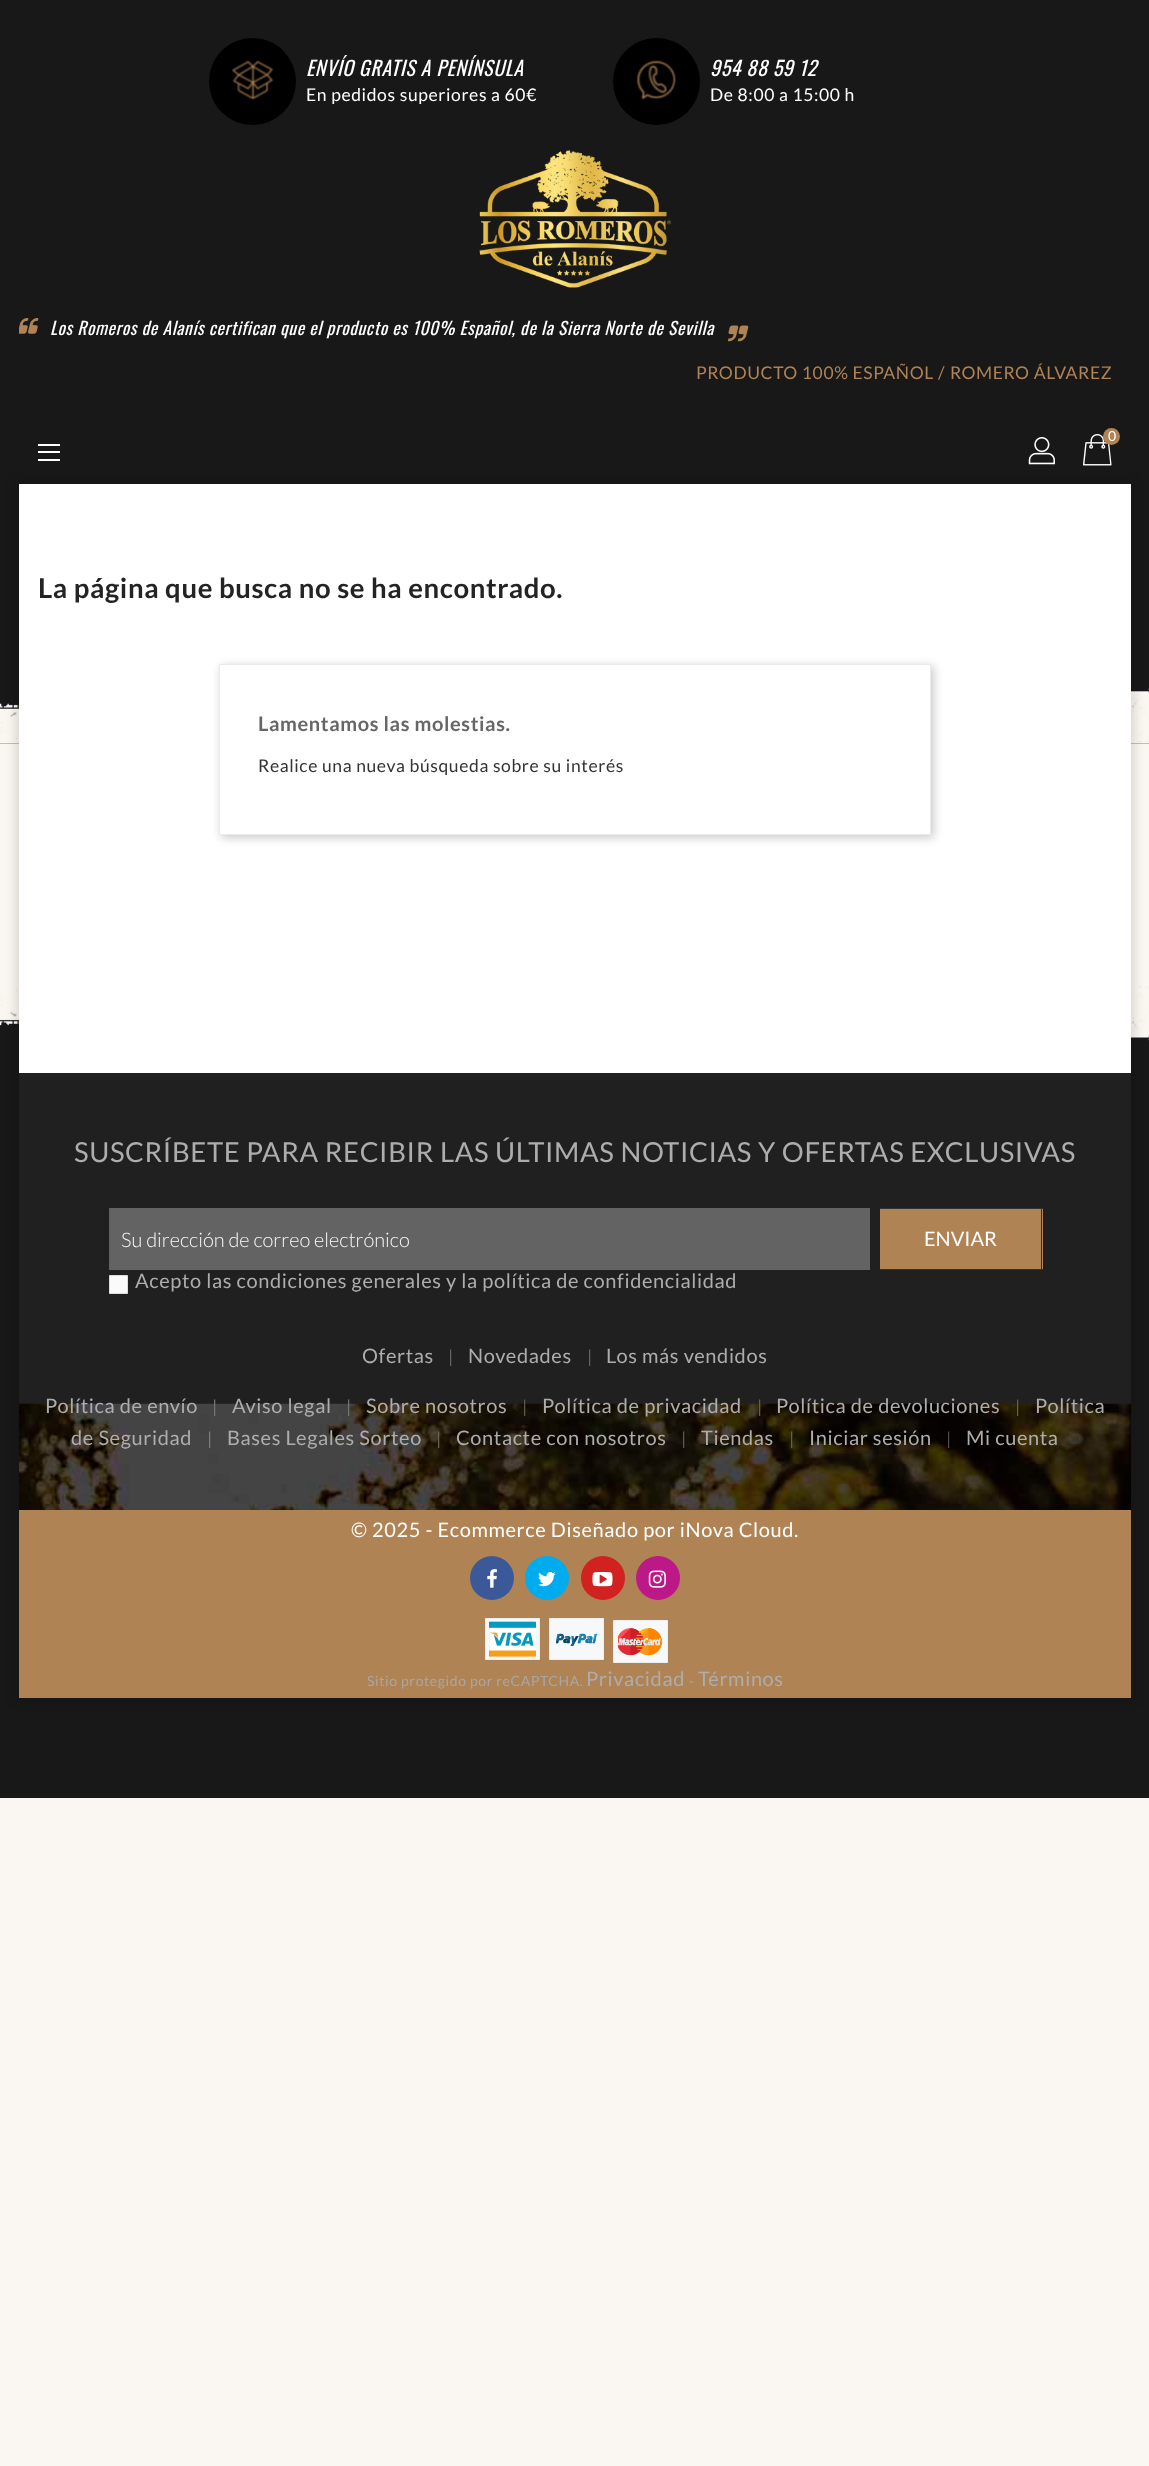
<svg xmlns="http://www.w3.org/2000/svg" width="1149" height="2466">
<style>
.a{font:italic 20px Oswald;letter-spacing:0.62px;fill:#fff}
.b{font:17.5px Lato;letter-spacing:0.62px;fill:#fff}
.c{font:italic 17.5px Oswald;letter-spacing:0.62px;fill:#fff}
.d{font:17.5px Lato;letter-spacing:0.62px;fill:#af8354}
.e{font:14px Lato;letter-spacing:0.62px;fill:#fff}
.f{font:bold 27.5px Lato;letter-spacing:0.62px;fill:#232323}
.g{font:bold 20px Lato;letter-spacing:0.62px;fill:#666}
.h{font:17.5px Lato;letter-spacing:0.62px;fill:#333}
.i{font:27.5px Lato;letter-spacing:0.62px;fill:#adadad}
.j{font:300 20px Lato;fill:#f9f9f9}
.k{font:20px Lato;fill:#fff}
.l{font:20px Lato;letter-spacing:0.62px;fill:#adadad}
.m{font:17.5px Lato;letter-spacing:0.62px;fill:#666}
.n{font:17.5px Lato;letter-spacing:0.62px;fill:#757575}
.o{font:17.5px Lato;letter-spacing:0.62px;fill:#5d5b55}
.p{font:17.5px Lato;letter-spacing:0.62px;fill:#656255}
.q{font:17.5px Lato;letter-spacing:0.62px;fill:#7c7c7c}
.r{font:17.5px Lato;letter-spacing:0.62px;fill:#6b6459}
.s{font:17.5px Lato;letter-spacing:0.62px;fill:#524e4d}
.t{font:20px Lato;letter-spacing:0.62px;fill:#fff}
.u{font:14px Lato;letter-spacing:0.62px;fill:#a7a7a7}
</style>
<defs>
<clipPath id="clip1"><path d="M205 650h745v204h-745zm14 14h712v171h-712z" clip-rule="evenodd"/></clipPath>
</defs>
<rect width="100%" height="100%" fill="#faf7f2"/>
<path fill="#181818" d="M0 0h1149v744H0z"/>
<image href="1.png" x="0" y="688" width="1149" height="56"/>
<circle fill="#000" cx="252.5" cy="81.5" r="43.5"/>
<image href="2.png" x="232" y="60" width="42" height="40"/>
<circle fill="#000" cx="656.5" cy="81.5" r="43.5"/>
<image href="3.png" x="636" y="60" width="40" height="40"/>
<image href="4.png" x="479" y="150" width="193" height="138"/>
<image href="5.png" x="19" y="318" width="20" height="16"/>
<image href="6.png" x="727" y="325" width="22" height="17"/>
<path fill="#fff" d="M38 444h22v2H38z"/>
<path fill="#fff" d="M38 451h22v2H38z"/>
<path fill="#fff" d="M38 459h22v2H38z"/>
<image href="7.png" x="1028" y="437" width="27" height="28"/>
<image href="8.png" x="1083" y="434" width="29" height="32"/>
<circle fill="#af8354" cx="1111.5" cy="436.5" r="8.5"/>
<path fill="#181818" d="M0 1019h1149v779H0z"/>
<image href="17.png" x="0" y="985" width="1149" height="56"/>
<path fill="#0000001a" filter="blur(4.5px)" d="M14 479h1122v1224H14z"/>
<path fill="#fff" d="M19 484h1112v589H19z"/>
<g clip-path="url(#clip1)">
<path fill="#00000033" filter="blur(5px)" d="M221 666h713v172H221z"/>
</g>
<path fill="none" stroke="#eaeaea" d="M219.5 664.5h711v170H219.5z"/>
<path fill="#202020" d="M19 1073h1112v331H19z"/>
<image href="9.png" x="19" y="1403" width="1112" height="107"/>
<path fill="#636363" d="M109 1208h761v62H109z"/>
<path fill="#af8354" d="M880 1209h163v60H880z"/>
<path fill="#333" d="M880 1208h163v1H880z"/>
<path fill="#333" d="M1041 1208h1v62H1041z"/>
<path fill="#333" d="M880 1269h163v1H880z"/>
<path fill="#fafafa" stroke="#ddd" d="M109.5 1275.5h18v18H109.5z"/>
<path fill="#af8354" d="M19 1510h1112v188H19z"/>
<circle fill="#3b5999" cx="492" cy="1578" r="22"/>
<image href="10.png" x="487" y="1569" width="10" height="19"/>
<circle fill="#00aced" cx="547" cy="1578" r="22"/>
<image href="11.png" x="538" y="1572" width="18" height="15"/>
<circle fill="#d12121" cx="603" cy="1578" r="22"/>
<image href="12.png" x="592" y="1572" width="21" height="15"/>
<circle fill="#bc1888" cx="658" cy="1578" r="22"/>
<image href="13.png" x="648" y="1570" width="18" height="18"/>
<path fill="#f7f8fa" stroke="#eee" d="M485.5 1618.5h54v41H485.5z"/>
<path fill="#f7f8fa" stroke="#eee" d="M549.5 1618.5h54v41H549.5z"/>
<path fill="#f7f8fa" stroke="#eee" d="M613.5 1620.5h54v42H613.5z"/>
<image href="14.png" x="489" y="1621" width="47" height="36"/>
<image href="15.png" x="556" y="1633" width="44" height="13"/>
<image href="16.png" x="618" y="1628" width="44" height="28"/>
<text class="a" x="306" y="76">ENVÍO GRATIS A PENÍNSULA</text>
<text class="b" x="306" y="101">En pedidos superiores a 60€</text>
<text class="a" x="710" y="76">954 88 59 12</text>
<text class="b" x="710" y="101">De 8:00 a 15:00 h</text>
<text class="c" x="50" y="335">Los Romeros de Alanís certifican que el producto es 100% Español, de la Sierra Norte de Sevilla</text>
<text class="d" x="696" y="379">PRODUCTO 100% ESPAÑOL /</text>
<text class="d" x="950" y="379">ROMERO ÁLVAREZ</text>
<text class="e" x="1108" y="441">0</text>
<text class="f" x="38" y="598">La página que busca no se ha encontrado.</text>
<text class="g" x="258" y="731">Lamentamos las molestias.</text>
<text class="h" x="258" y="772">Realice una nueva búsqueda sobre su interés</text>
<text class="i" x="74" y="1162">SUSCRÍBETE PARA RECIBIR LAS ÚLTIMAS NOTICIAS Y OFERTAS EXCLUSIVAS</text>
<text class="j" x="121" y="1247">Su dirección de correo electrónico</text>
<text class="k" x="924" y="1246">ENVIAR</text>
<text class="l" x="135" y="1288">Acepto las condiciones generales y la política de confidencialidad</text>
<text class="l" x="362" y="1363">Ofertas</text>
<text class="m" x="448" y="1363">|</text>
<text class="l" x="468" y="1363">Novedades</text>
<text class="m" x="587" y="1363">|</text>
<text class="l" x="606" y="1363">Los más vendidos</text>
<text class="l" x="45" y="1413">Política de envío</text>
<text class="n" x="212" y="1413">|</text>
<text class="l" x="232" y="1413">Aviso legal</text>
<text class="n" x="346" y="1413">|</text>
<text class="l" x="366" y="1413">Sobre nosotros</text>
<text class="o" x="522" y="1413">|</text>
<text class="l" x="542" y="1413">Política de privacidad</text>
<text class="p" x="757" y="1413">|</text>
<text class="l" x="776" y="1413">Política de devoluciones</text>
<text class="p" x="1015" y="1413">|</text>
<text class="l" x="1035" y="1413">Política</text>
<text class="l" x="71" y="1445">de Seguridad</text>
<text class="q" x="207" y="1445">|</text>
<text class="l" x="227" y="1445">Bases Legales Sorteo</text>
<text class="r" x="436" y="1445">|</text>
<text class="l" x="456" y="1445">Contacte con nosotros</text>
<text class="o" x="681" y="1445">|</text>
<text class="l" x="701" y="1445">Tiendas</text>
<text class="p" x="789" y="1445">|</text>
<text class="l" x="809" y="1445">Iniciar sesión</text>
<text class="s" x="946" y="1445">|</text>
<text class="l" x="966" y="1445">Mi cuenta</text>
<text class="t" x="351" y="1537">© 2025 - Ecommerce Diseñado por iNova Cloud.</text>
<text class="u" x="367" y="1686">Sitio protegido por reCAPTCHA.</text>
<text class="l" x="586" y="1686">Privacidad</text>
<text class="u" x="689" y="1686">-</text>
<text class="l" x="698" y="1686">Términos</text>
</svg>
